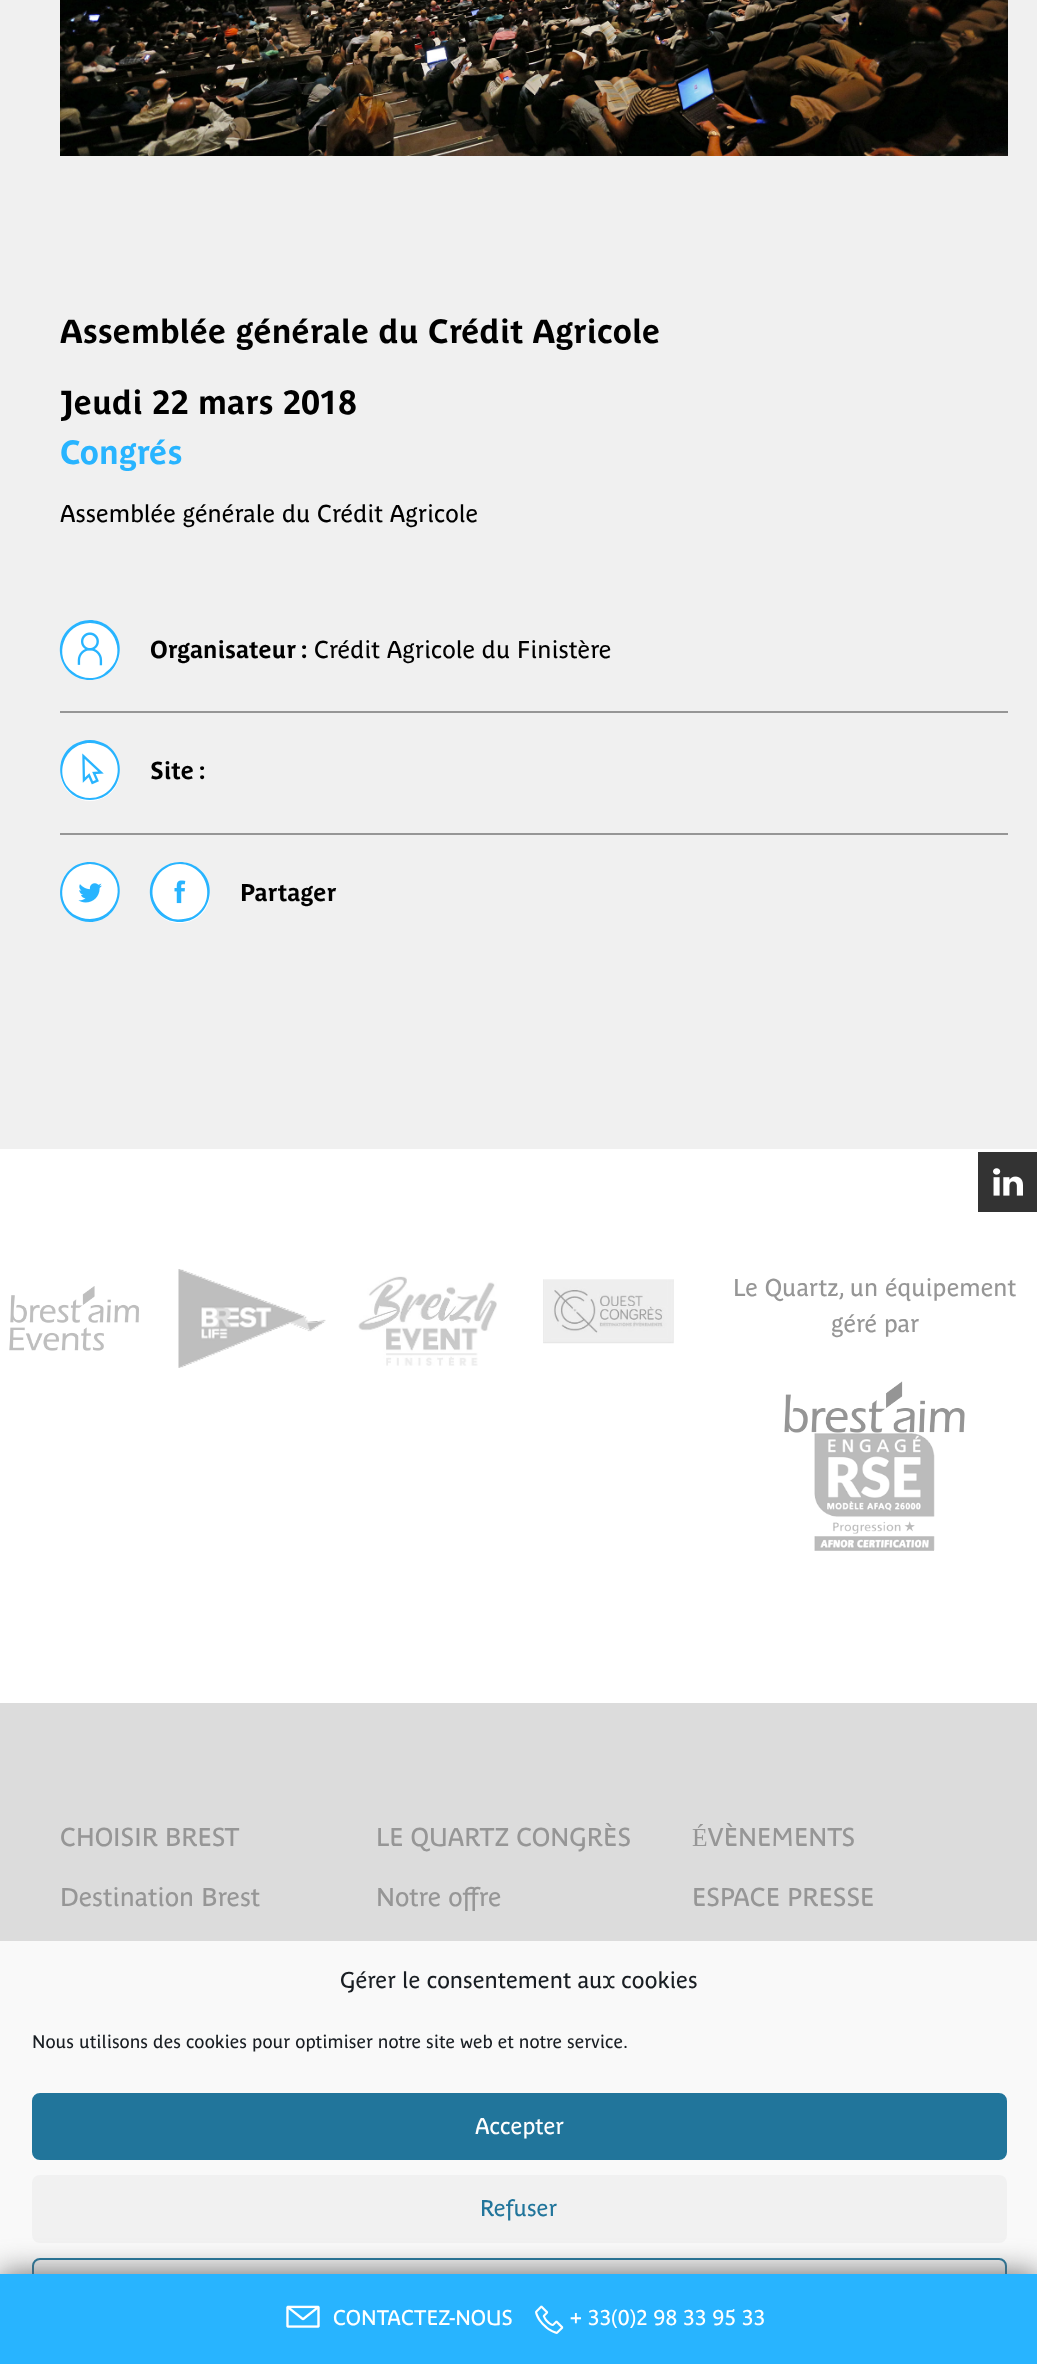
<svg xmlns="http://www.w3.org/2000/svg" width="1037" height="2364">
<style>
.a{font:bold 33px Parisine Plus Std;fill:#000}
.b{font:bold 33px Parisine Plus Std;fill:#28b4ff}
.c{font:24px Parisine Plus Std;fill:#000}
.d{font:bold 24px Parisine Plus Std;fill:#000}
.e{font:24px Parisine Plus Std;fill:#969696}
.f{font:25.5px Parisine Plus Std;fill:#969696}
.g{font:22.5px Parisine Plus Std;fill:#191e23}
.h{font:18px Parisine Plus Std;fill:#191e23}
.i{font:22.5px Parisine Plus Std;fill:#fff}
.j{font:22.5px Parisine Plus Std;fill:#21759b}
.k{font:21px Parisine Plus Std;fill:#fff}
.l{font:30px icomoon;fill:#fff}
</style>
<rect width="100%" height="100%" fill="#f0f0f0"/>
<image href="1.png" x="60" y="0" width="948" height="156"/>
<path fill="#969696" d="M60 711h948v2H60z"/>
<path fill="#fff" d="M120 650c0 29-37 41-54 18c-4-5-6-11-6-18c0-6 2-13 6-18c17-23 54-10 54 18z"/>
<path fill="#28b4ff" d="M90 623c-26 0-38 34-17 49c5 4 11 6 17 6c6 0 12-2 16-6c22-15 10-49-16-49zm0 57c-29 0-41-37-18-54c5-4 11-6 18-6c6 0 13 2 18 6c23 17 10 54-18 54z"/>
<image href="3.png" x="77" y="648" width="26" height="18"/>
<image href="2.png" x="81" y="632" width="18" height="19"/>
<path fill="#969696" d="M60 833h948v2H60z"/>
<path fill="#fff" d="M90 801c6 0 12-2 18-6c22-16 10-52-18-52c-28 0-40 36-18 52c6 4 12 6 18 6z"/>
<path fill="#28b4ff" d="M90 743c-26 0-38 34-17 49c5 4 11 6 17 6c26 0 38-34 17-50c-5-3-11-5-17-5zm0 57c-29 0-41-38-17-55c5-3 11-5 17-5c6 0 12 2 17 5c24 17 12 55-17 55z"/>
<image href="4.png" x="82" y="753" width="22" height="32"/>
<path fill="#fff" d="M90 922c28 0 40-36 18-52c-6-4-12-6-18-6c-6 0-12 2-18 6c-22 16-10 52 18 52z"/>
<path fill="#28b4ff" d="M90 864c-26 0-38 34-17 50c5 3 11 5 17 5c26 0 38-34 17-49c-5-4-11-6-17-6zm0 58c-6 0-12-2-17-5c-24-17-12-55 17-55c6 0 12 2 17 5c24 16 12 55-17 55z"/>
<image href="5.png" x="78" y="883" width="24" height="20"/>
<path fill="#fff" d="M210 893c0 29-37 41-54 18c-4-5-6-11-6-18c0-6 2-13 6-18c17-23 54-10 54 18z"/>
<path fill="#fff" d="M180 921c16 0 30-14 29-31c0-9-6-18-14-23c-6-4-14-5-21-4c-34 7-29 58 6 58z"/>
<path fill="#28b4ff" d="M180 864c-10 0-20 6-24 15c-4 7-5 16-1 24c3 7 10 13 18 16c6 1 13 0 19-2c26-13 17-52-12-53zm0 58c-29 0-41-37-18-54c5-4 11-6 18-6c6 0 13 2 18 6c23 17 10 54-18 54z"/>
<image href="6.png" x="174" y="880" width="12" height="24"/>
<path fill="#fff" d="M0 1149h1037v554H0z"/>
<path fill="#333" d="M978 1152h59v60H978z"/>
<image href="7.png" x="993" y="1168" width="30" height="28"/>
<image href="8.png" x="9" y="1286" width="130" height="65"/>
<image href="9.png" x="178" y="1269" width="148" height="99"/>
<image href="10.png" x="358" y="1276" width="139" height="90"/>
<image href="11.png" x="543" y="1279" width="131" height="65"/>
<image href="12.png" x="784" y="1381" width="181" height="52"/>
<image href="13.png" x="814" y="1433" width="121" height="118"/>
<path fill="#dcdcdc" d="M0 1703h1037v238H0z"/>
<path fill="#f9f9f9" d="M0 1941h1037v333H0z"/>
<rect fill="#21759b" stroke="#21759b" stroke-width="2" x="33" y="2094" width="973" height="65" rx="7"/>
<rect fill="#f1f1f1" x="32" y="2175" width="975" height="68" rx="8"/>
<rect fill="#f1f1f1" stroke="#21759b" stroke-width="2" x="33" y="2259" width="973" height="65" rx="7"/>
<path fill="#656565" filter="blur(15px)" d="M0 2274h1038v90H0z"/>
<path fill="#28b4ff" d="M0 2274h1037v90H0z"/>
<image href="14.png" x="286" y="2305" width="34" height="23"/>
<text class="a" x="60" y="343">Assemblée générale du Crédit Agricole</text>
<text class="a" x="60" y="414">Jeudi 22 mars 2018</text>
<text class="b" x="60" y="464">Congrés</text>
<text class="c" x="60" y="522">Assemblée générale du Crédit Agricole</text>
<text class="d" x="150" y="658">Organisateur :</text>
<text class="c" x="314" y="658">Crédit Agricole du Finistère</text>
<text class="d" x="150" y="779">Site :</text>
<text class="d" x="240" y="901">Partager</text>
<text class="e" x="733" y="1296">Le Quartz, un équipement</text>
<text class="e" x="831" y="1332">géré par</text>
<text class="f" x="60" y="1846">CHOISIR BREST</text>
<text class="f" x="60" y="1906">Destination Brest</text>
<text class="f" x="376" y="1846">LE QUARTZ CONGRÈS</text>
<text class="f" x="376" y="1906">Notre offre</text>
<text class="f" x="692" y="1846">ÉVÈNEMENTS</text>
<text class="f" x="692" y="1906">ESPACE PRESSE</text>
<text class="g" x="340" y="1988">Gérer le consentement aux cookies</text>
<text class="h" x="32" y="2048">Nous utilisons des cookies pour optimiser notre site web et notre service.</text>
<text class="i" x="475" y="2134">Accepter</text>
<text class="j" x="480" y="2216">Refuser</text>
<text class="k" x="333" y="2325">CONTACTEZ-NOUS</text>
<text class="l" x="534" y="2333">󩀀</text>
<text class="k" x="570" y="2325">+ 33(0)2 98 33 95 33</text>
</svg>
